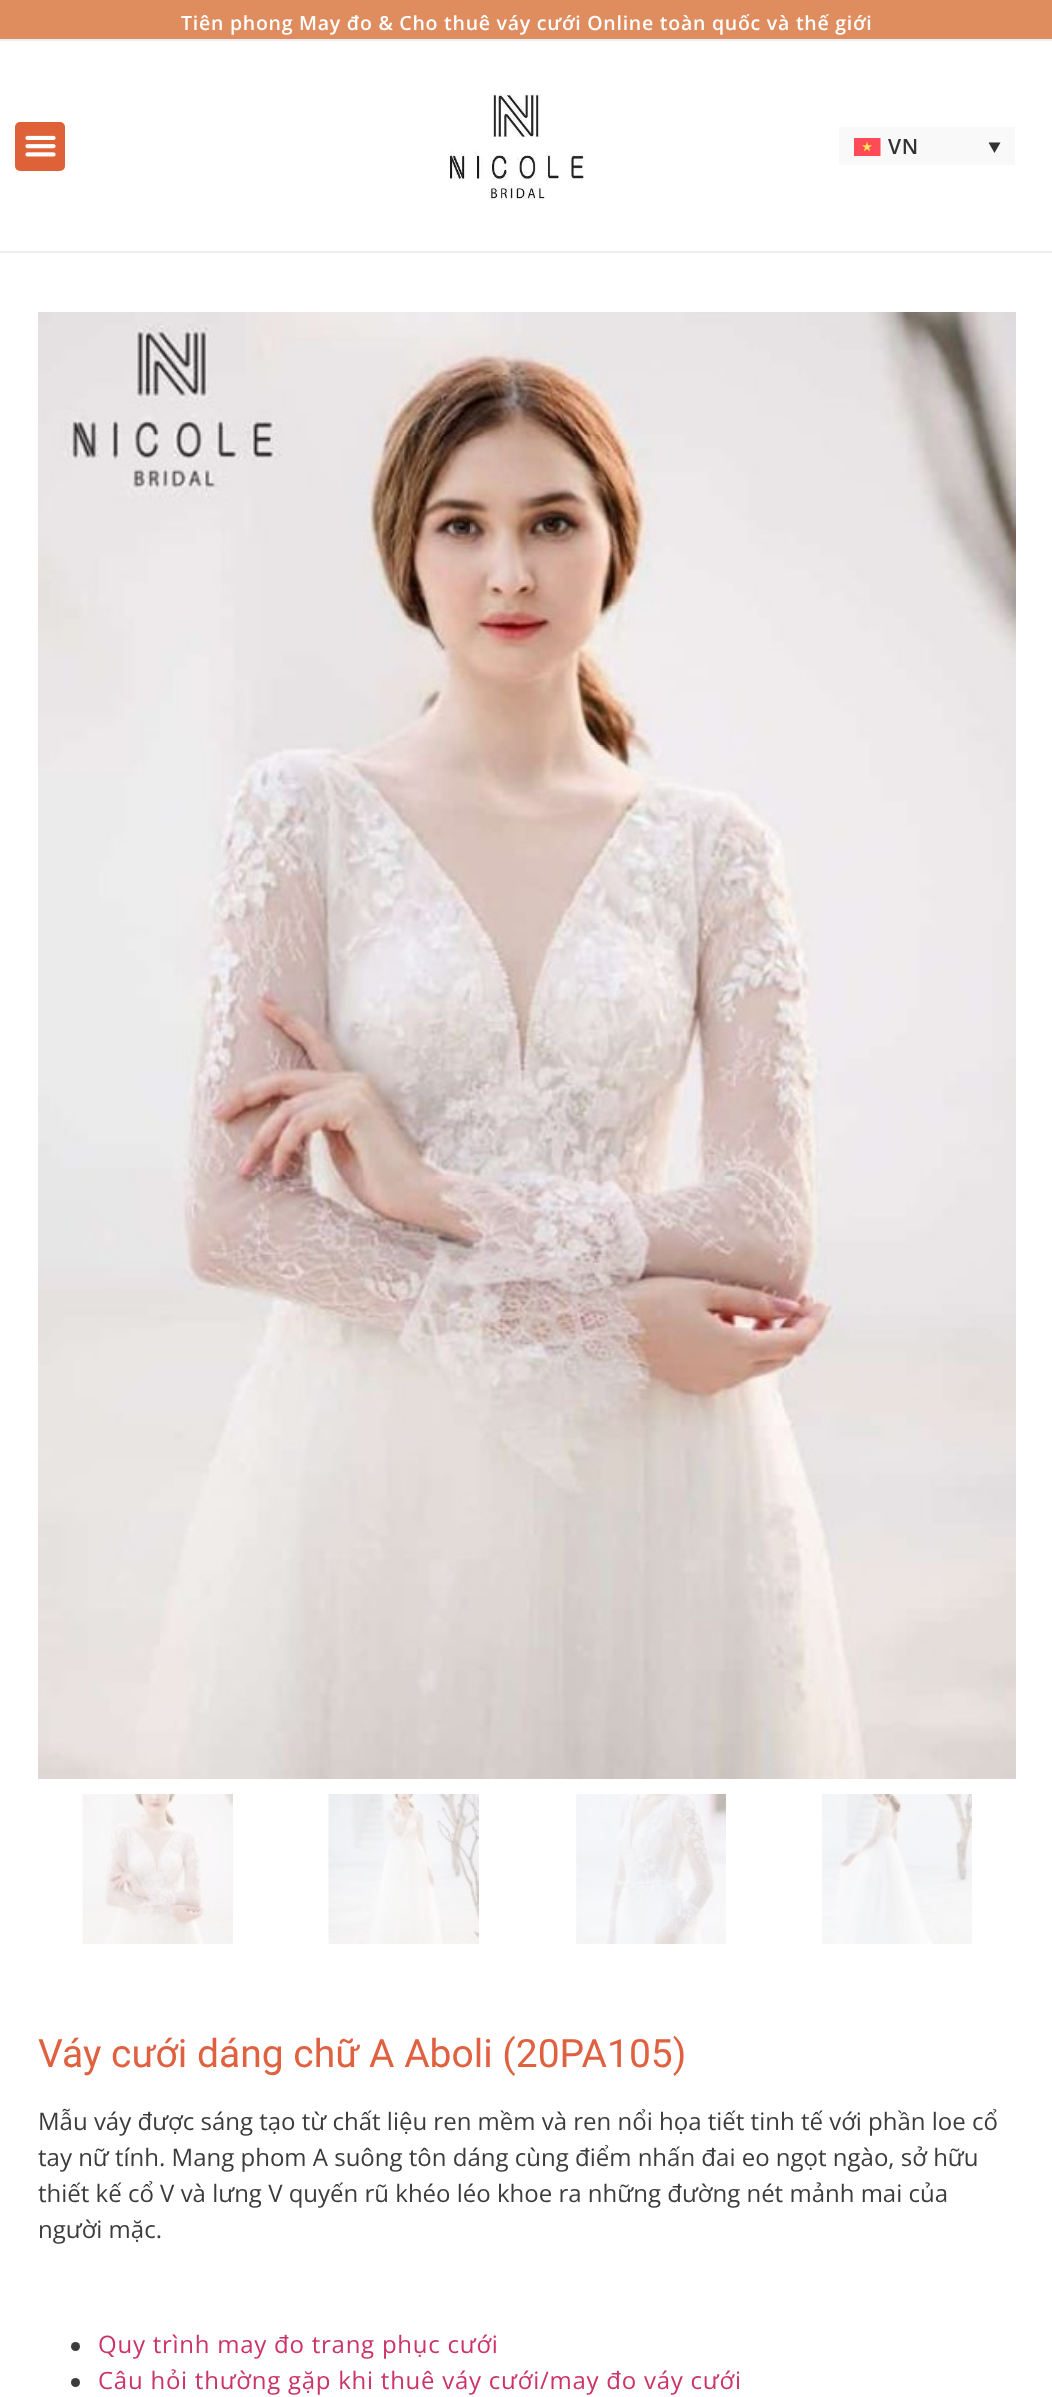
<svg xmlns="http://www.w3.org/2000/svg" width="1052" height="2397">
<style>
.a{font:600 19.5px Open Sans;letter-spacing:0.75px;fill:#fff}
.b{font:600 21px Open Sans;letter-spacing:0.75px;fill:#333}
.c{font:39px Roboto;fill:#df6140}
.d{font:24px Open Sans;fill:#3c3c3c}
.e{font:24px Open Sans;letter-spacing:0.75px;fill:#c36}
</style>
<rect width="100%" height="100%" fill="#fff"/>
<path fill="#df8c5e" d="M0 0h1052v39H0z"/>
<path fill="#eee" d="M0 39h1052v2H0z"/>
<path fill="#eee" d="M0 251h1052v2H0z"/>
<rect fill="#df6138" x="15" y="122" width="50" height="49" rx="5"/>
<image href="1.png" x="25" y="135" width="31" height="22"/>
<image href="2.png" x="450" y="94" width="135" height="106"/>
<path fill="#f9f9f9" d="M839 127h176v38H839z"/>
<image href="3.png" x="854" y="138" width="27" height="18"/>
<path fill="#333" d="M988.5 142.5h12l-6 10.5z"/>
<image href="4.png" x="38" y="312" width="978" height="1467"/>
<image href="5.png" x="82" y="1794" width="151" height="150"/>
<image href="6.png" x="328" y="1794" width="151" height="150"/>
<image href="7.png" x="576" y="1794" width="150" height="150"/>
<image href="8.png" x="822" y="1794" width="150" height="150"/>
<circle fill="#3c3c3c" cx="75.5" cy="2346.5" r="4.5"/>
<circle fill="#3c3c3c" cx="75.5" cy="2382.5" r="4.5"/>
<text class="a" x="181" y="30">Tiên phong May đo &amp; Cho thuê váy cưới Online toàn quốc và thế giới</text>
<text class="b" x="888" y="154">VN</text>
<text class="c" x="38" y="2067">Váy cưới dáng chữ A Aboli (20PA105)</text>
<text class="d" x="38" y="2130">Mẫu váy được sáng tạo từ chất liệu ren mềm và ren nổi họa tiết tinh tế với phần loe cổ</text>
<text class="d" x="38" y="2166">tay nữ tính. Mang phom A suông tôn dáng cùng điểm nhấn đai eo ngọt ngào, sở hữu</text>
<text class="d" x="38" y="2202">thiết kế cổ V và lưng V quyến rũ khéo léo khoe ra những đường nét mảnh mai của</text>
<text class="d" x="38" y="2238">người mặc.</text>
<text class="e" x="98" y="2353">Quy trình may đo trang phục cưới</text>
<text class="e" x="98" y="2389">Câu hỏi thường gặp khi thuê váy cưới/may đo váy cưới</text>
</svg>
